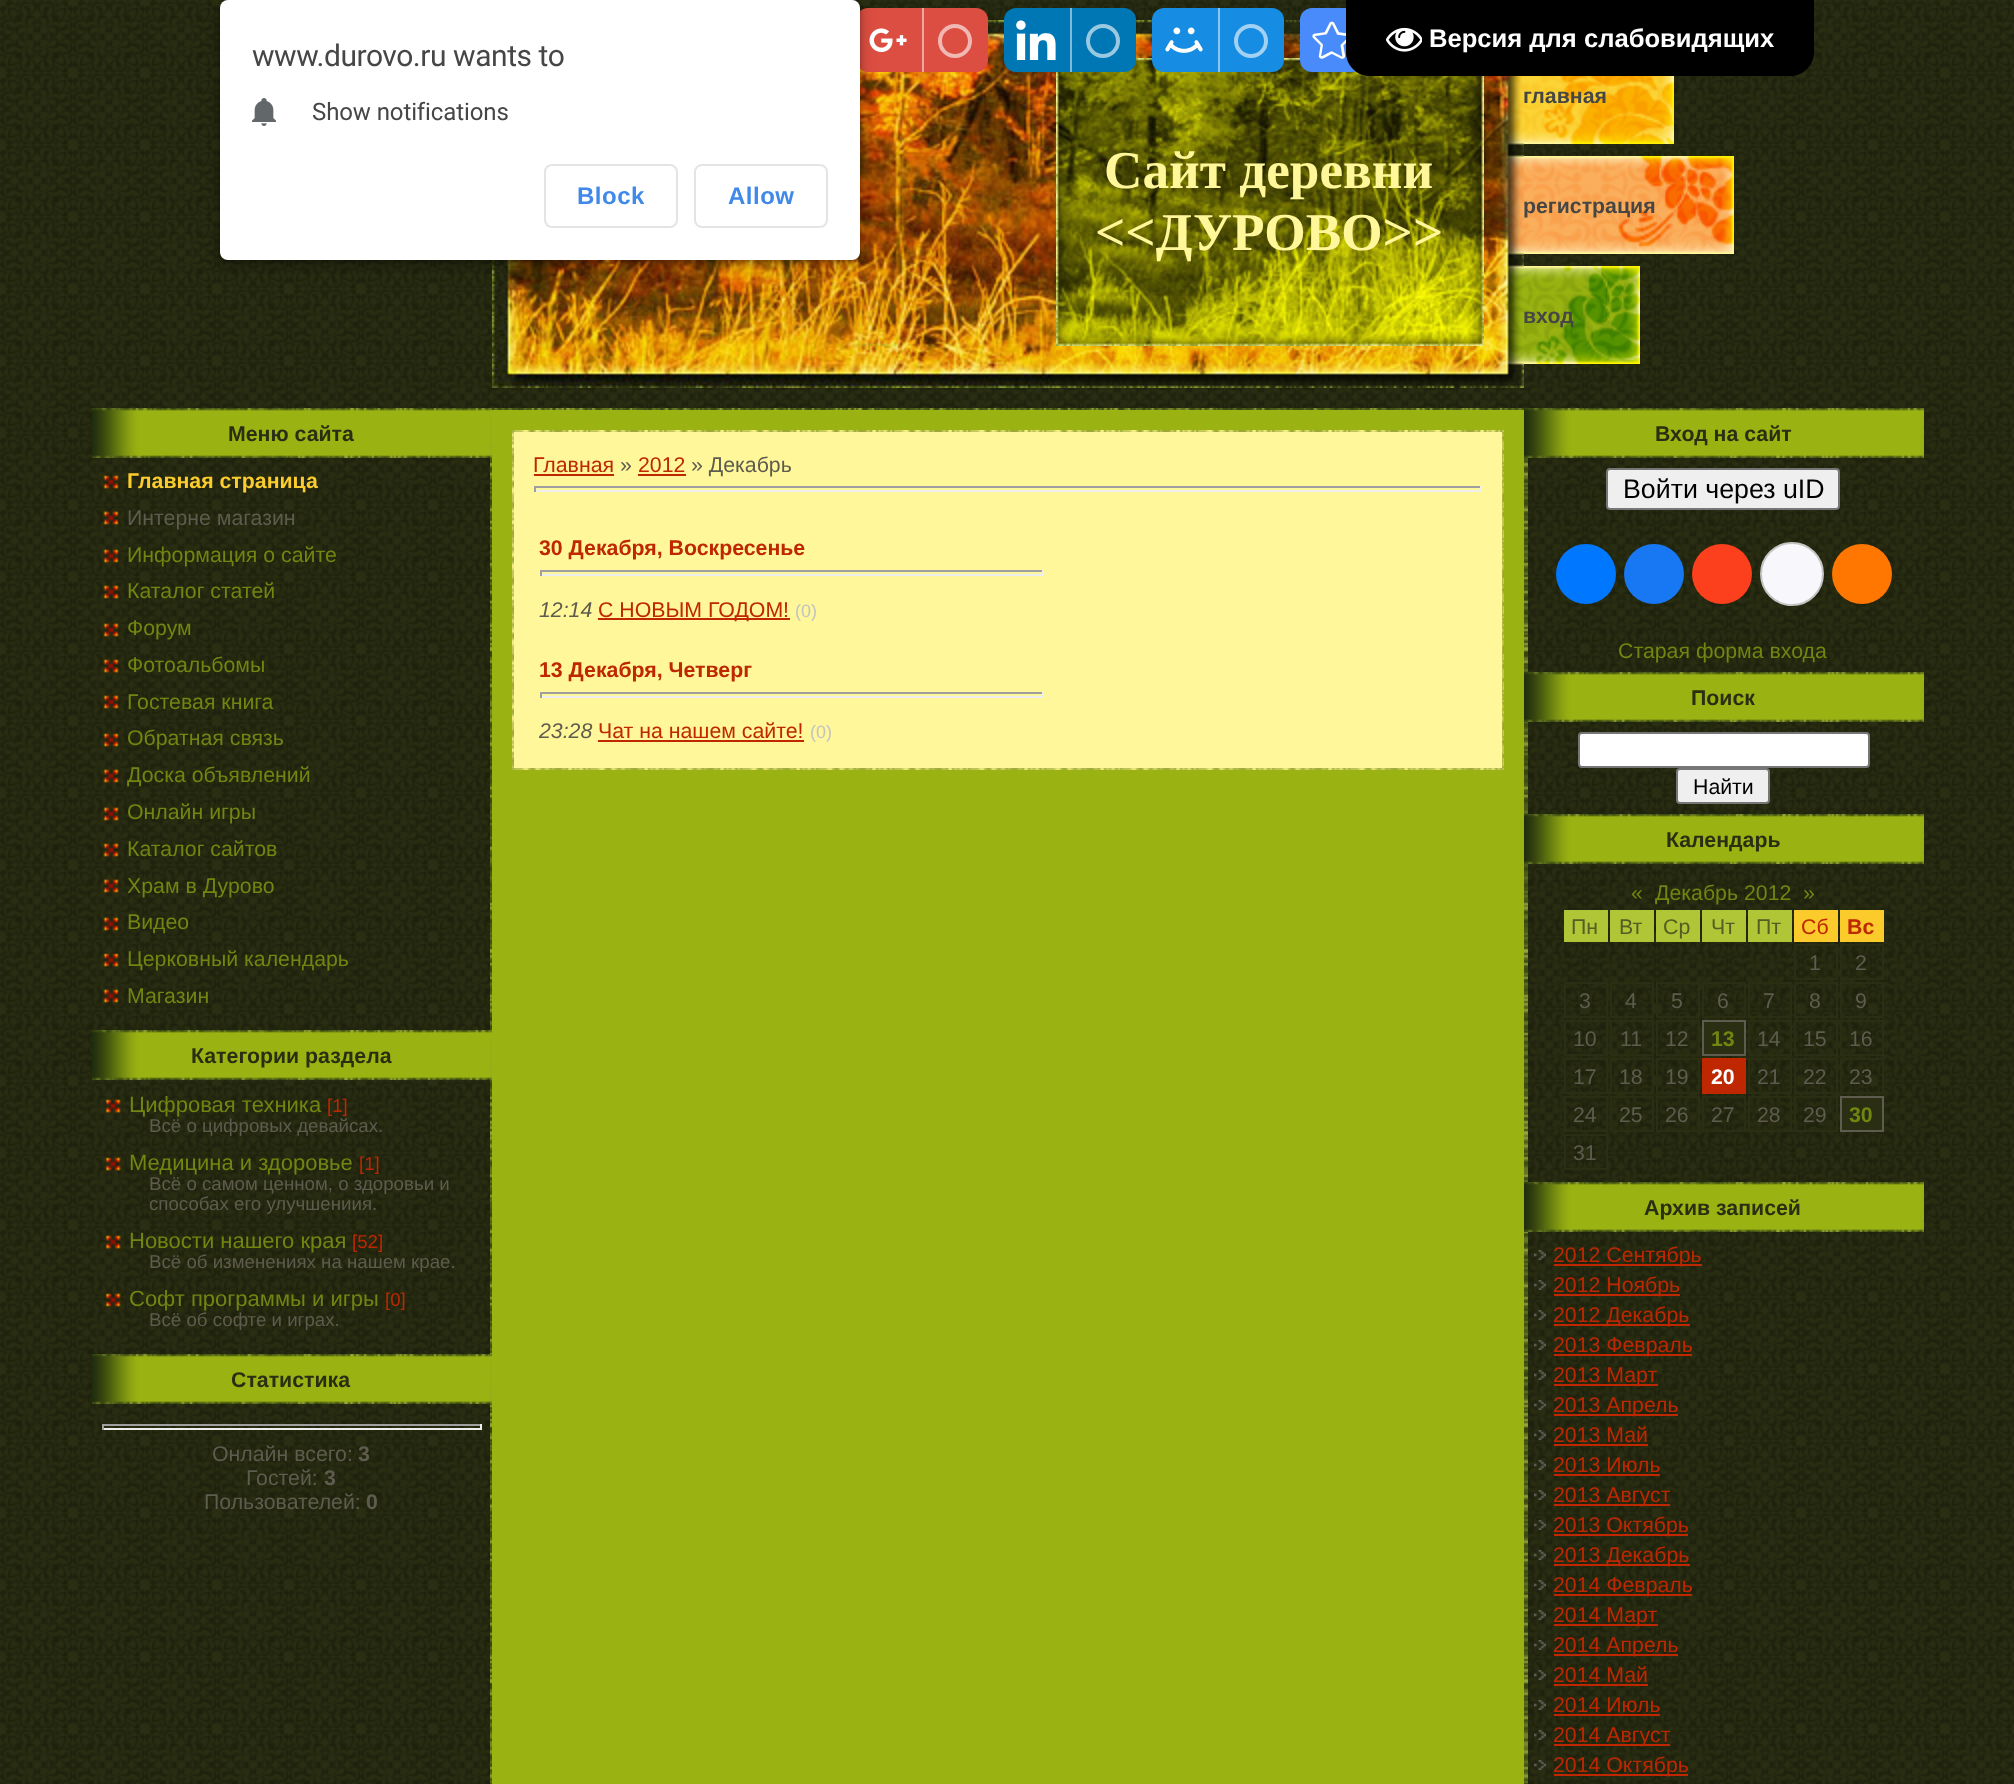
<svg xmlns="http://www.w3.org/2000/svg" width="2014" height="1784">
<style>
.a{font:bold 25.6px Liberation Sans;fill:#fff}
.b{font:30px Roboto;letter-spacing:-0.45px;fill:#464646}
.c{font:24px Roboto;letter-spacing:-0.1px;fill:#464646}
.d{font:bold 24px Liberation Sans;letter-spacing:0.5px;fill:#4089e8}
.e{font:bold 53.25px Liberation Serif;fill:#fff799}
.f{font:bold 21.3px Liberation Sans;fill:#464646}
.g{font:bold 21.3px Liberation Sans;fill:#2a2e12}
.h{font:bold 21.3px Liberation Sans;fill:#fbcc2d}
.i{font:21.3px Liberation Sans;fill:#5e5c4e}
.j{font:21.3px Liberation Sans;fill:#718611}
.k{font:22px Liberation Sans;fill:#718611}
.l{font:18.7px Liberation Sans;fill:#be2700}
.m{font:18.7px Liberation Sans;fill:#5e5c4e}
.n{font:bold 21.3px Liberation Sans;fill:#5e5c4e}
.o{font:21.3px Liberation Sans;fill:#be2700}
.p{font:bold 21.3px Liberation Sans;fill:#be2700}
.q{font:italic 21.3px Liberation Sans;fill:#5e5c4e}
.r{font:18px Liberation Sans;fill:#c3c3c3}
.s{font:26.75px Liberation Sans;fill:#000}
.t{font:21.3px Liberation Sans;fill:#000}
.u{font:21.3px Liberation Sans;fill:#555d24}
.v{font:bold 21.3px Liberation Sans;fill:#718611}
.w{font:bold 21.3px Liberation Sans;fill:#fff}
</style>
<rect width="100%" height="100%" fill="#fff"/>
<image href="1.png" x="0" y="0" width="2014" height="1784"/>
<image href="9.png" x="492" y="20" width="564" height="368"/>
<rect fill="#dc4e41" x="856" y="8" width="132" height="64" rx="12"/>
<image href="2.png" x="869" y="28" width="38" height="24"/>
<path fill="#eea7a0" d="M922 8h2v64H922z"/>
<circle fill="none" stroke="#f1b8b3" stroke-width="4" cx="955" cy="41" r="15"/>
<image href="8.png" x="1056" y="58" width="428" height="288"/>
<rect fill="#0077b5" x="1004" y="8" width="132" height="64" rx="12"/>
<image href="3.png" x="1016" y="20" width="40" height="40"/>
<path fill="#80bbda" d="M1070 8h2v64H1070z"/>
<circle fill="none" stroke="#99c9e1" stroke-width="4" cx="1103" cy="41" r="15"/>
<image href="10.png" x="1136" y="20" width="164" height="38"/>
<rect fill="#168de2" x="1152" y="8" width="132" height="64" rx="12"/>
<image href="4.png" x="1165" y="27" width="38" height="26"/>
<path fill="#8bc6f1" d="M1218 8h2v64H1218z"/>
<circle fill="none" stroke="#a2d1f3" stroke-width="4" cx="1251" cy="41" r="15"/>
<rect fill="#498bfa" x="1300" y="8" width="64" height="64" rx="12"/>
<image href="5.png" x="1312" y="21" width="34" height="38"/>
<path fill="#000" d="M1346 0h468v52c0 13.5-10.5 24-24 24h-420c-13.5 0-24-10.5-24-24z"/>
<image href="6.png" x="1386" y="27" width="36" height="25"/>
<rect fill="#00000026" filter="blur(6px)" x="216" width="648" height="268" rx="12"/>
<rect fill="#0000004d" filter="blur(2px)" x="220" y="2" width="640" height="260" rx="8"/>
<rect fill="#fff" x="220" width="640" height="260" rx="8"/>
<image href="7.png" x="252" y="98" width="24" height="28"/>
<rect fill="none" stroke="#e4e4e4" stroke-width="2" x="545" y="165" width="132" height="62" rx="7"/>
<rect fill="none" stroke="#e4e4e4" stroke-width="2" x="695" y="165" width="132" height="62" rx="7"/>
<image href="11.png" x="1484" y="76" width="40" height="312"/>
<image href="12.png" x="1524" y="76" width="150" height="68"/>
<image href="13.png" x="1524" y="156" width="210" height="98"/>
<image href="14.png" x="1524" y="266" width="116" height="98"/>
<image href="15.png" x="1056" y="346" width="428" height="42"/>
<image href="16.png" x="490" y="458" width="2" height="1326"/>
<image href="17.png" x="92" y="408" width="400" height="50"/>
<image href="18.png" x="103" y="475" width="16" height="14"/>
<image href="19.png" x="103" y="511" width="16" height="14"/>
<image href="20.png" x="103" y="549" width="16" height="14"/>
<image href="21.png" x="103" y="585" width="16" height="14"/>
<image href="22.png" x="103" y="623" width="16" height="14"/>
<image href="23.png" x="103" y="659" width="16" height="14"/>
<image href="22.png" x="103" y="695" width="16" height="14"/>
<image href="24.png" x="103" y="733" width="16" height="14"/>
<image href="25.png" x="103" y="769" width="16" height="14"/>
<image href="26.png" x="103" y="807" width="16" height="14"/>
<image href="27.png" x="103" y="843" width="16" height="14"/>
<image href="26.png" x="103" y="879" width="16" height="14"/>
<image href="28.png" x="103" y="917" width="16" height="14"/>
<image href="29.png" x="103" y="953" width="16" height="14"/>
<image href="28.png" x="103" y="989" width="16" height="14"/>
<image href="17.png" x="92" y="1030" width="400" height="50"/>
<image href="30.png" x="105" y="1099" width="16" height="14"/>
<image href="31.png" x="105" y="1157" width="16" height="14"/>
<image href="32.png" x="105" y="1235" width="16" height="14"/>
<image href="33.png" x="105" y="1293" width="16" height="14"/>
<image href="17.png" x="92" y="1354" width="400" height="50"/>
<path fill="#9f9f9f" d="M102 1424h380v2H102z"/>
<path fill="#eee" d="M480 1424h2v6H480z"/>
<path fill="#eee" d="M102 1428h380v2H102z"/>
<path fill="#9f9f9f" d="M102 1424h2v6H102z"/>
<path fill="#9ab312" d="M492 410h1032v1374H492z"/>
<image href="34.png" x="492" y="408" width="1032" height="2"/>
<image href="35.png" x="512" y="430" width="992" height="340"/>
<path fill="#fff799" d="M514 432h988v336H514z"/>
<path fill="#be2700" d="M534 474h80v2H534z"/>
<path fill="#be2700" d="M638 474h48v2H638z"/>
<path fill="#9f9f9f" d="M534 486h948v2H534z"/>
<path fill="#eee" d="M1480 486h2v6H1480z"/>
<path fill="#eee" d="M534 490h948v2H534z"/>
<path fill="#9f9f9f" d="M534 486h2v6H534z"/>
<path fill="#9f9f9f" d="M540 570h504v2H540z"/>
<path fill="#eee" d="M1042 570h2v6H1042z"/>
<path fill="#eee" d="M540 574h504v2H540z"/>
<path fill="#9f9f9f" d="M540 570h2v6H540z"/>
<path fill="#be2700" d="M598 618h192v2H598z"/>
<path fill="#9f9f9f" d="M540 692h504v2H540z"/>
<path fill="#eee" d="M1042 692h2v6H1042z"/>
<path fill="#eee" d="M540 696h504v2H540z"/>
<path fill="#9f9f9f" d="M540 692h2v6H540z"/>
<path fill="#be2700" d="M598 740h206v2H598z"/>
<image href="36.png" x="1524" y="458" width="4" height="1326"/>
<image href="17.png" x="1524" y="408" width="400" height="50"/>
<rect fill="#efefef" stroke="#767676" stroke-width="2" x="1607" y="469" width="232" height="40" rx="3"/>
<circle fill="#07f" cx="1586" cy="574" r="30"/>
<circle fill="#1877f2" cx="1654" cy="574" r="30"/>
<circle fill="#fc3f1d" cx="1722" cy="574" r="30"/>
<circle fill="#f8f8fc" stroke="#c4c4c4" stroke-width="2" cx="1792" cy="574" r="31"/>
<circle fill="#f70" cx="1862" cy="574" r="30"/>
<image href="17.png" x="1524" y="672" width="400" height="50"/>
<rect fill="#fff" stroke="#767676" stroke-width="2" x="1579" y="733" width="290" height="34" rx="3"/>
<rect fill="#efefef" stroke="#767676" stroke-width="2" x="1677" y="769" width="92" height="34" rx="3"/>
<image href="17.png" x="1524" y="814" width="400" height="50"/>
<path fill="#b0c636" d="M1564 910h44v32H1564z"/>
<path fill="#b0c636" d="M1610 910h44v32H1610z"/>
<path fill="#b0c636" d="M1656 910h44v32H1656z"/>
<path fill="#b0c636" d="M1702 910h44v32H1702z"/>
<path fill="#b0c636" d="M1748 910h44v32H1748z"/>
<path fill="#fbcb2b" d="M1794 910h44v32H1794z"/>
<path fill="#fbcb2b" d="M1840 910h44v32H1840z"/>
<path fill="none" stroke="#2a2e12" stroke-width="2" d="M1795 945h42v34H1795z"/>
<path fill="none" stroke="#2a2e12" stroke-width="2" d="M1841 945h42v34H1841z"/>
<path fill="none" stroke="#2a2e12" stroke-width="2" d="M1565 983h42v34H1565z"/>
<path fill="none" stroke="#2a2e12" stroke-width="2" d="M1611 983h42v34H1611z"/>
<path fill="none" stroke="#2a2e12" stroke-width="2" d="M1657 983h42v34H1657z"/>
<path fill="none" stroke="#2a2e12" stroke-width="2" d="M1703 983h42v34H1703z"/>
<path fill="none" stroke="#2a2e12" stroke-width="2" d="M1749 983h42v34H1749z"/>
<path fill="none" stroke="#2a2e12" stroke-width="2" d="M1795 983h42v34H1795z"/>
<path fill="none" stroke="#2a2e12" stroke-width="2" d="M1841 983h42v34H1841z"/>
<path fill="none" stroke="#2a2e12" stroke-width="2" d="M1565 1021h42v34H1565z"/>
<path fill="none" stroke="#2a2e12" stroke-width="2" d="M1611 1021h42v34H1611z"/>
<path fill="none" stroke="#2a2e12" stroke-width="2" d="M1657 1021h42v34H1657z"/>
<path fill="#2a2e12" stroke="#5e5c4e" stroke-width="2" d="M1703 1021h42v34H1703z"/>
<path fill="none" stroke="#2a2e12" stroke-width="2" d="M1749 1021h42v34H1749z"/>
<path fill="none" stroke="#2a2e12" stroke-width="2" d="M1795 1021h42v34H1795z"/>
<path fill="none" stroke="#2a2e12" stroke-width="2" d="M1841 1021h42v34H1841z"/>
<path fill="none" stroke="#2a2e12" stroke-width="2" d="M1565 1059h42v34H1565z"/>
<path fill="none" stroke="#2a2e12" stroke-width="2" d="M1611 1059h42v34H1611z"/>
<path fill="none" stroke="#2a2e12" stroke-width="2" d="M1657 1059h42v34H1657z"/>
<path fill="#be2700" d="M1702 1058h44v36H1702z"/>
<path fill="none" stroke="#2a2e12" stroke-width="2" d="M1749 1059h42v34H1749z"/>
<path fill="none" stroke="#2a2e12" stroke-width="2" d="M1795 1059h42v34H1795z"/>
<path fill="none" stroke="#2a2e12" stroke-width="2" d="M1841 1059h42v34H1841z"/>
<path fill="none" stroke="#2a2e12" stroke-width="2" d="M1565 1097h42v34H1565z"/>
<path fill="none" stroke="#2a2e12" stroke-width="2" d="M1611 1097h42v34H1611z"/>
<path fill="none" stroke="#2a2e12" stroke-width="2" d="M1657 1097h42v34H1657z"/>
<path fill="none" stroke="#2a2e12" stroke-width="2" d="M1703 1097h42v34H1703z"/>
<path fill="none" stroke="#2a2e12" stroke-width="2" d="M1749 1097h42v34H1749z"/>
<path fill="none" stroke="#2a2e12" stroke-width="2" d="M1795 1097h42v34H1795z"/>
<path fill="#2a2e12" stroke="#5e5c4e" stroke-width="2" d="M1841 1097h42v34H1841z"/>
<path fill="none" stroke="#2a2e12" stroke-width="2" d="M1565 1135h42v34H1565z"/>
<image href="17.png" x="1524" y="1182" width="400" height="50"/>
<image href="37.png" x="1534" y="1250" width="12" height="10"/>
<path fill="#be2700" d="M1554 1264h148v2H1554z"/>
<image href="38.png" x="1534" y="1280" width="12" height="10"/>
<path fill="#be2700" d="M1554 1294h126v2H1554z"/>
<image href="39.png" x="1534" y="1310" width="12" height="10"/>
<path fill="#be2700" d="M1554 1324h136v2H1554z"/>
<image href="40.png" x="1534" y="1340" width="12" height="10"/>
<path fill="#be2700" d="M1554 1354h138v2H1554z"/>
<image href="41.png" x="1534" y="1370" width="12" height="10"/>
<path fill="#be2700" d="M1554 1384h104v2H1554z"/>
<image href="42.png" x="1534" y="1400" width="12" height="10"/>
<path fill="#be2700" d="M1554 1414h124v2H1554z"/>
<image href="43.png" x="1534" y="1430" width="12" height="10"/>
<path fill="#be2700" d="M1554 1444h94v2H1554z"/>
<image href="44.png" x="1534" y="1460" width="12" height="10"/>
<path fill="#be2700" d="M1554 1474h106v2H1554z"/>
<image href="45.png" x="1534" y="1490" width="12" height="10"/>
<path fill="#be2700" d="M1554 1504h116v2H1554z"/>
<image href="46.png" x="1534" y="1520" width="12" height="10"/>
<path fill="#be2700" d="M1554 1534h134v2H1554z"/>
<image href="47.png" x="1534" y="1550" width="12" height="10"/>
<path fill="#be2700" d="M1554 1564h136v2H1554z"/>
<image href="48.png" x="1534" y="1580" width="12" height="10"/>
<path fill="#be2700" d="M1554 1594h138v2H1554z"/>
<image href="37.png" x="1534" y="1610" width="12" height="10"/>
<path fill="#be2700" d="M1554 1624h104v2H1554z"/>
<image href="38.png" x="1534" y="1640" width="12" height="10"/>
<path fill="#be2700" d="M1554 1654h124v2H1554z"/>
<image href="39.png" x="1534" y="1670" width="12" height="10"/>
<path fill="#be2700" d="M1554 1684h94v2H1554z"/>
<image href="40.png" x="1534" y="1700" width="12" height="10"/>
<path fill="#be2700" d="M1554 1714h106v2H1554z"/>
<image href="41.png" x="1534" y="1730" width="12" height="10"/>
<path fill="#be2700" d="M1554 1744h116v2H1554z"/>
<image href="42.png" x="1534" y="1760" width="12" height="10"/>
<path fill="#be2700" d="M1554 1774h134v2H1554z"/>
<text class="a" x="1429" y="47">Версия для слабовидящих</text>
<text class="b" x="252" y="66">www.durovo.ru wants to</text>
<text class="c" x="312" y="120">Show notifications</text>
<text class="d" x="577" y="204">Block</text>
<text class="d" x="728" y="204">Allow</text>
<text class="e" x="1104" y="188">Сайт деревни</text>
<text class="e" x="1095" y="250">&lt;&lt;ДУРОВО&gt;&gt;</text>
<text class="f" x="1523" y="103">главная</text>
<text class="f" x="1523" y="213">регистрация</text>
<text class="f" x="1523" y="323">вход</text>
<text class="g" x="228" y="441">Меню сайта</text>
<text class="h" x="127" y="488">Главная страница</text>
<text class="i" x="127" y="525">Интерне магазин</text>
<text class="j" x="127" y="562">Информация о сайте</text>
<text class="j" x="127" y="598">Каталог статей</text>
<text class="j" x="127" y="635">Форум</text>
<text class="j" x="127" y="672">Фотоальбомы</text>
<text class="j" x="127" y="709">Гостевая книга</text>
<text class="j" x="127" y="745">Обратная связь</text>
<text class="j" x="127" y="782">Доска объявлений</text>
<text class="j" x="127" y="819">Онлайн игры</text>
<text class="j" x="127" y="856">Каталог сайтов</text>
<text class="j" x="127" y="893">Храм в Дурово</text>
<text class="j" x="127" y="929">Видео</text>
<text class="j" x="127" y="966">Церковный календарь</text>
<text class="j" x="127" y="1003">Магазин</text>
<text class="g" x="191" y="1063">Категории раздела</text>
<text class="k" x="129" y="1112">Цифровая техника</text>
<text class="l" x="327" y="1112">[1]</text>
<text class="m" x="149" y="1132">Всё о цифровых девайсах.</text>
<text class="k" x="129" y="1170">Медицина и здоровье</text>
<text class="l" x="359" y="1170">[1]</text>
<text class="m" x="149" y="1190">Всё о самом ценном, о здоровьи и</text>
<text class="m" x="149" y="1210">способах его улучшениия.</text>
<text class="k" x="129" y="1248">Новости нашего края</text>
<text class="l" x="352" y="1248">[52]</text>
<text class="m" x="149" y="1268">Всё об изменениях на нашем крае.</text>
<text class="k" x="129" y="1306">Софт программы и игры</text>
<text class="l" x="385" y="1306">[0]</text>
<text class="m" x="149" y="1326">Всё об софте и играх.</text>
<text class="g" x="231" y="1387">Статистика</text>
<text class="i" x="212" y="1461">Онлайн всего:</text>
<text class="n" x="358" y="1461">3</text>
<text class="i" x="246" y="1485">Гостей:</text>
<text class="n" x="324" y="1485">3</text>
<text class="i" x="204" y="1509">Пользователей:</text>
<text class="n" x="366" y="1509">0</text>
<text class="o" x="533" y="472">Главная</text>
<text class="i" x="620" y="472">»</text>
<text class="o" x="638" y="472">2012</text>
<text class="i" x="691" y="472">» Декабрь</text>
<text class="p" x="539" y="555">30 Декабря, Воскресенье</text>
<text class="q" x="539" y="617">12:14</text>
<text class="o" x="598" y="617">С НОВЫМ ГОДОМ!</text>
<text class="r" x="795" y="617">(0)</text>
<text class="p" x="539" y="677">13 Декабря, Четверг</text>
<text class="q" x="539" y="738">23:28</text>
<text class="o" x="598" y="738">Чат на нашем сайте!</text>
<text class="r" x="810" y="738">(0)</text>
<text class="g" x="1655" y="441">Вход на сайт</text>
<text class="s" x="1623" y="498">Войти через uID</text>
<text class="j" x="1618" y="658">Старая форма входа</text>
<text class="g" x="1691" y="705">Поиск</text>
<text class="t" x="1693" y="794">Найти</text>
<text class="g" x="1666" y="847">Календарь</text>
<text class="j" x="1631" y="900">«</text>
<text class="j" x="1655" y="900">Декабрь 2012</text>
<text class="j" x="1803" y="900">»</text>
<text class="u" x="1571" y="934">Пн</text>
<text class="u" x="1619" y="934">Вт</text>
<text class="u" x="1663" y="934">Ср</text>
<text class="u" x="1711" y="934">Чт</text>
<text class="u" x="1756" y="934">Пт</text>
<text class="o" x="1801" y="934">Сб</text>
<text class="p" x="1847" y="934">Вс</text>
<text class="i" x="1809" y="970">1</text>
<text class="i" x="1855" y="970">2</text>
<text class="i" x="1579" y="1008">3</text>
<text class="i" x="1625" y="1008">4</text>
<text class="i" x="1671" y="1008">5</text>
<text class="i" x="1717" y="1008">6</text>
<text class="i" x="1763" y="1008">7</text>
<text class="i" x="1809" y="1008">8</text>
<text class="i" x="1855" y="1008">9</text>
<text class="i" x="1573" y="1046">10</text>
<text class="i" x="1620" y="1046">11</text>
<text class="i" x="1665" y="1046">12</text>
<text class="v" x="1711" y="1046">13</text>
<text class="i" x="1757" y="1046">14</text>
<text class="i" x="1803" y="1046">15</text>
<text class="i" x="1849" y="1046">16</text>
<text class="i" x="1573" y="1084">17</text>
<text class="i" x="1619" y="1084">18</text>
<text class="i" x="1665" y="1084">19</text>
<text class="w" x="1711" y="1084">20</text>
<text class="i" x="1757" y="1084">21</text>
<text class="i" x="1803" y="1084">22</text>
<text class="i" x="1849" y="1084">23</text>
<text class="i" x="1573" y="1122">24</text>
<text class="i" x="1619" y="1122">25</text>
<text class="i" x="1665" y="1122">26</text>
<text class="i" x="1711" y="1122">27</text>
<text class="i" x="1757" y="1122">28</text>
<text class="i" x="1803" y="1122">29</text>
<text class="v" x="1849" y="1122">30</text>
<text class="i" x="1573" y="1160">31</text>
<text class="g" x="1644" y="1215">Архив записей</text>
<text class="o" x="1553" y="1262">2012 Сентябрь</text>
<text class="o" x="1553" y="1292">2012 Ноябрь</text>
<text class="o" x="1553" y="1322">2012 Декабрь</text>
<text class="o" x="1553" y="1352">2013 Февраль</text>
<text class="o" x="1553" y="1382">2013 Март</text>
<text class="o" x="1553" y="1412">2013 Апрель</text>
<text class="o" x="1553" y="1442">2013 Май</text>
<text class="o" x="1553" y="1472">2013 Июль</text>
<text class="o" x="1553" y="1502">2013 Август</text>
<text class="o" x="1553" y="1532">2013 Октябрь</text>
<text class="o" x="1553" y="1562">2013 Декабрь</text>
<text class="o" x="1553" y="1592">2014 Февраль</text>
<text class="o" x="1553" y="1622">2014 Март</text>
<text class="o" x="1553" y="1652">2014 Апрель</text>
<text class="o" x="1553" y="1682">2014 Май</text>
<text class="o" x="1553" y="1712">2014 Июль</text>
<text class="o" x="1553" y="1742">2014 Август</text>
<text class="o" x="1553" y="1772">2014 Октябрь</text>
</svg>
